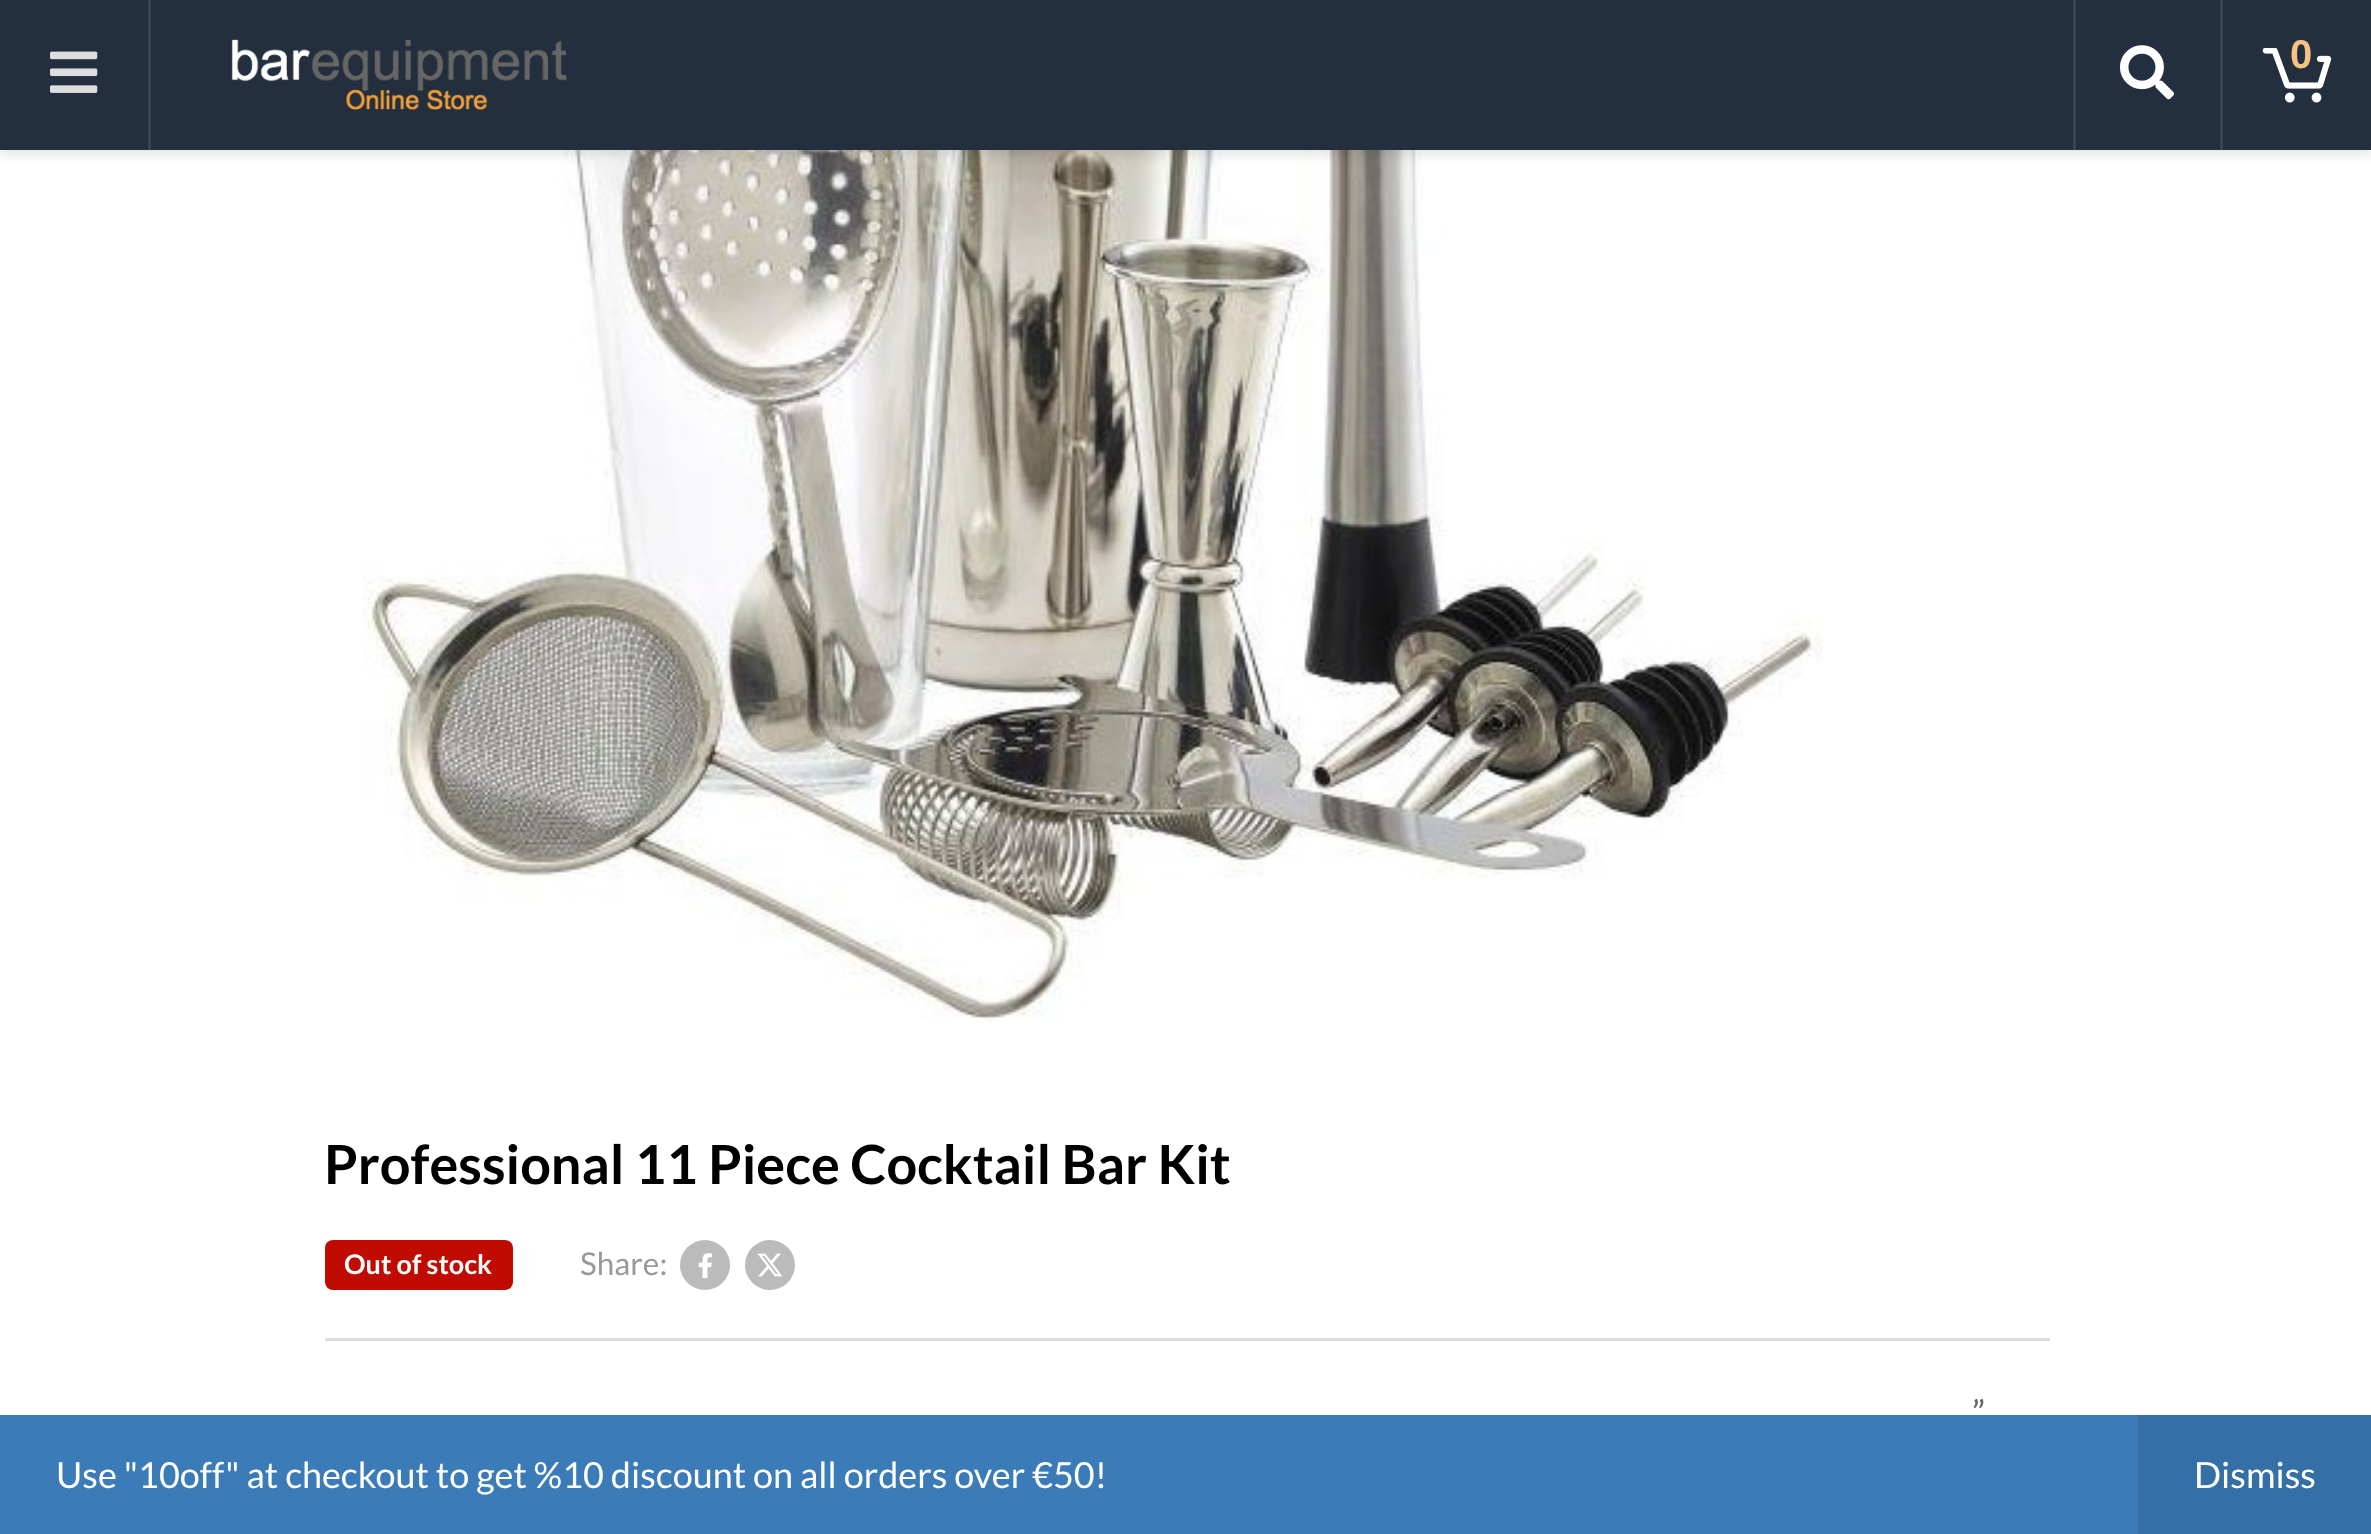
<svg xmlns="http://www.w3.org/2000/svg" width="2371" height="1534">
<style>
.a{font:bold 40px Liberation Sans;fill:#f7c281}
.b{font:bold 54px Lato;fill:#000}
.c{font:bold 27px Lato;fill:#fff}
.d{font:31.5px Lato;fill:#999}
.e{font:36px Lato;fill:#666}
.f{font:36px Lato;fill:#fff}
</style>
<rect width="100%" height="100%" fill="#fff"/>
<image href="5.png" x="362" y="150" width="1461" height="873"/>
<path fill="#0000001a" filter="blur(6px)" d="M0 5h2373v150H0z"/>
<path fill="#232f3f" d="M0 0h2371v150H0z"/>
<path fill="#394452" d="M148 0h3v150H148z"/>
<image href="1.png" x="50" y="51" width="48" height="42"/>
<image href="2.png" x="231" y="39" width="336" height="72"/>
<path fill="#394452" d="M2220 0h3v150H2220z"/>
<path fill="#394452" d="M2073 0h3v150H2073z"/>
<image href="3.png" x="2120" y="45" width="54" height="55"/>
<image href="4.png" x="2262" y="48" width="70" height="55"/>
<path fill="#ddd" d="M325 1338h1725v3H325z"/>
<rect fill="#c00c00" x="325" y="1240" width="188" height="50" rx="8"/>
<circle fill="#bbb" cx="705" cy="1265" r="25"/>
<image href="6.png" x="698" y="1253" width="14" height="26"/>
<circle fill="#bbb" cx="770" cy="1265" r="25"/>
<image href="7.png" x="757" y="1253" width="26" height="24"/>
<path fill="#3a7bb8" d="M0 1415h2138v119H0z"/>
<path fill="#346fa6" d="M2138 1415h233v119H2138z"/>
<text class="a" x="2290" y="68">0</text>
<text class="b" x="324" y="1184">Professional 11 Piece Cocktail Bar Kit</text>
<text class="c" x="344" y="1274">Out of stock</text>
<text class="d" x="580" y="1275">Share:</text>
<text class="e" x="1972" y="1426">”</text>
<text class="f" x="56" y="1488">Use "10off" at checkout to get %10 discount on all orders over €50!</text>
<text class="f" x="2194" y="1488">Dismiss</text>
</svg>
